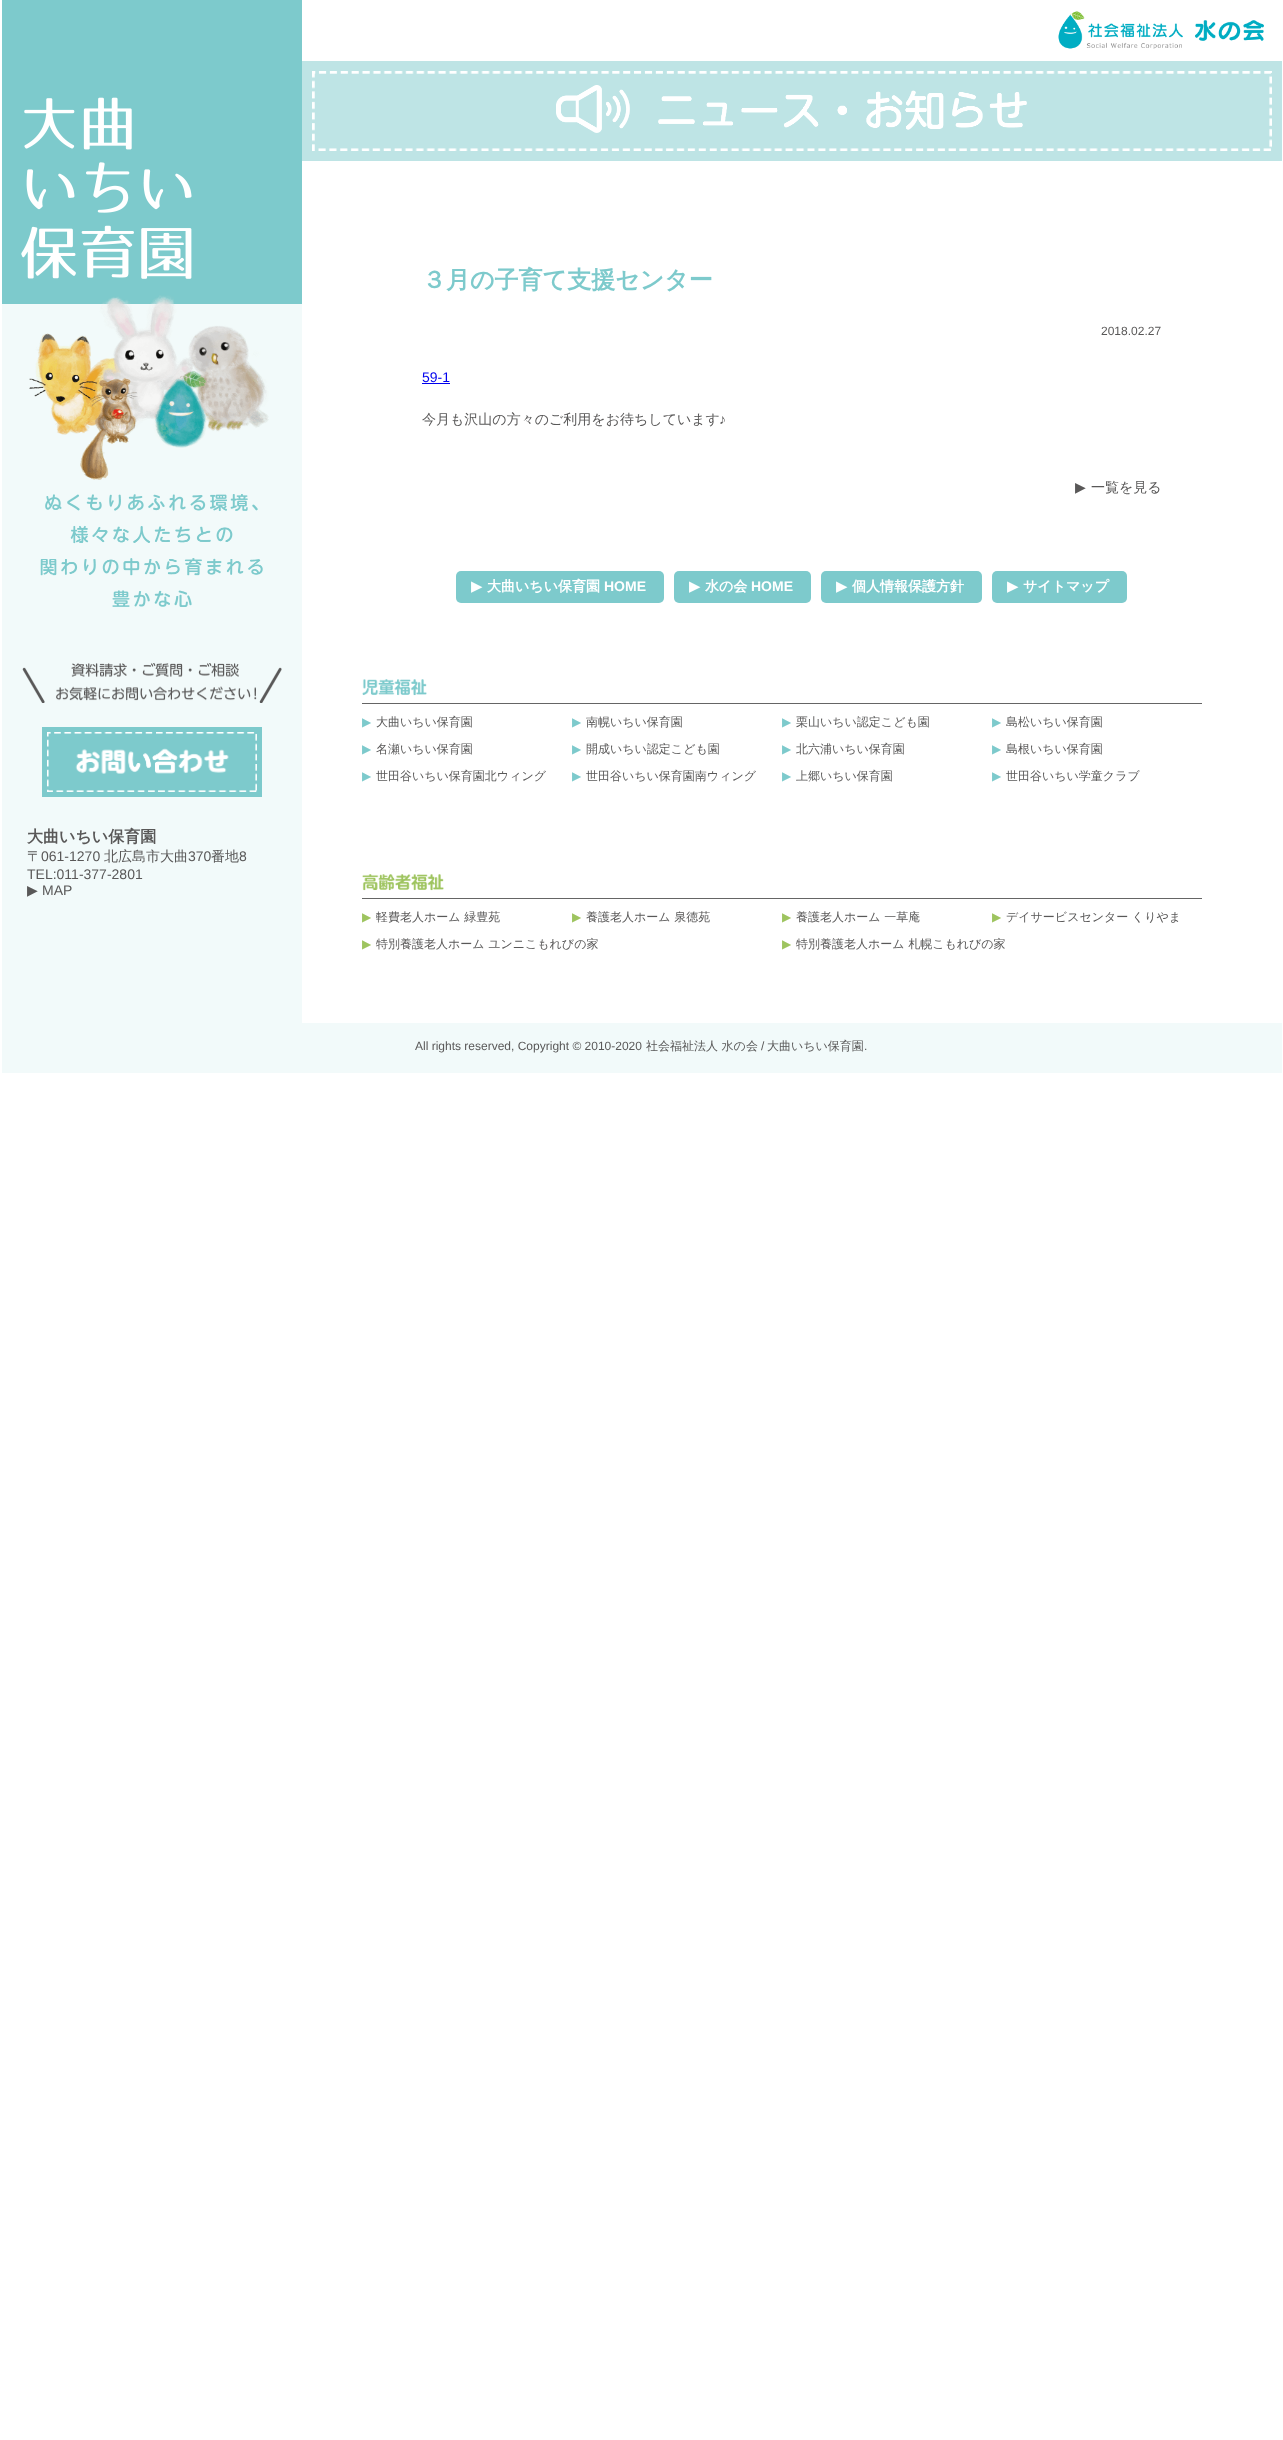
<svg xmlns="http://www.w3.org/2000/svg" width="1283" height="2440">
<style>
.a{font:bold 24px WenQuanYi Zen Hei;fill:#7dcacc}
.b{font:12px Liberation Sans;fill:#595858}
.c{font:14px Liberation Sans;fill:#00e}
.d{font:500 14px WenQuanYi Zen Hei;fill:#595858}
.e{font:14px Liberation Sans;fill:#595858}
.f{font:14px DejaVu Sans;fill:#595858}
.g{font:bold 14px DejaVu Sans;fill:#fff}
.h{font:bold 14px WenQuanYi Zen Hei;fill:#fff}
.i{font:bold 14px Liberation Sans;fill:#fff}
.j{font:bold 16px WenQuanYi Zen Hei;fill:#595858}
.k{font:12px DejaVu Sans;fill:#7dcacc}
.l{font:500 12px WenQuanYi Zen Hei;fill:#595858}
.m{font:12px DejaVu Sans;fill:#9ec45f}
</style>
<rect width="100%" height="100%" fill="#fff"/>
<path fill="#f2fafa" d="M2 304h300v719H2z"/>
<path fill="#bee4e5" d="M302 61h980v100H302z"/>
<image href="1.png" x="312" y="71" width="960" height="80"/>
<image href="2.png" x="556" y="85" width="471" height="48"/>
<path fill="#00e" d="M422 383h28v1H422z"/>
<rect fill="#7dcacc" x="456" y="571" width="208" height="32" rx="5"/>
<rect fill="#7dcacc" x="674" y="571" width="137" height="32" rx="5"/>
<rect fill="#7dcacc" x="821" y="571" width="161" height="32" rx="5"/>
<rect fill="#7dcacc" x="992" y="571" width="135" height="32" rx="5"/>
<image href="3.png" x="1058" y="11" width="206" height="38"/>
<path fill="#7dcacc" d="M2 0h300v304H2z"/>
<image href="4.png" x="21" y="97" width="171" height="182"/>
<image href="5.png" x="29" y="295" width="240" height="185"/>
<image href="6.png" x="40" y="494" width="223" height="113"/>
<image href="7.png" x="22" y="663" width="260" height="40"/>
<path fill="#7dcacc" d="M42 727h220v70H42z"/>
<image href="8.png" x="47" y="732" width="210" height="60"/>
<path fill="#656565" d="M362 703h840v1H362z"/>
<image href="9.png" x="362" y="679" width="65" height="17"/>
<path fill="#656565" d="M362 898h840v1H362z"/>
<image href="10.png" x="362" y="874" width="82" height="17"/>
<path fill="#f2fafa" d="M2 1023h1280v50H2z"/>
<text class="a" x="422" y="288">３月の子育て支援センター</text>
<text class="b" x="1101" y="335">2018.02.27</text>
<text class="c" x="422" y="382">59-1</text>
<text class="d" x="422" y="424">今月も沢山の方々のご利用をお待ちしています</text>
<text class="e" x="719" y="424">♪</text>
<text class="f" x="1075" y="492">▶︎</text>
<text class="d" x="1091" y="492">一覧を見る</text>
<text class="g" x="471" y="591">▶︎</text>
<text class="h" x="487" y="591">大曲いちい保育園</text>
<text class="i" x="604" y="591">HOME</text>
<text class="g" x="689" y="591">▶︎</text>
<text class="h" x="705" y="591">水の会</text>
<text class="i" x="751" y="591">HOME</text>
<text class="g" x="836" y="591">▶︎</text>
<text class="h" x="852" y="591">個人情報保護方針</text>
<text class="g" x="1007" y="591">▶︎</text>
<text class="h" x="1023" y="591">サイトマップ</text>
<text class="j" x="27" y="842">大曲いちい保育園</text>
<text class="d" x="27" y="861">〒</text>
<text class="e" x="41" y="861">061-1270</text>
<text class="d" x="104" y="861">北広島市大曲</text>
<text class="e" x="188" y="861">370</text>
<text class="d" x="211" y="861">番地</text>
<text class="e" x="239" y="861">8</text>
<text class="e" x="27" y="879">TEL:011-377-2801</text>
<text class="f" x="27" y="895">▶︎</text>
<text class="e" x="42" y="895">MAP</text>
<text class="k" x="362" y="726">▶︎</text>
<text class="l" x="376" y="726">大曲いちい保育園</text>
<text class="k" x="572" y="726">▶︎</text>
<text class="l" x="586" y="726">南幌いちい保育園</text>
<text class="k" x="782" y="726">▶︎</text>
<text class="l" x="796" y="726">栗山いちい認定こども園</text>
<text class="k" x="992" y="726">▶︎</text>
<text class="l" x="1006" y="726">島松いちい保育園</text>
<text class="k" x="362" y="753">▶︎</text>
<text class="l" x="376" y="753">名瀬いちい保育園</text>
<text class="k" x="572" y="753">▶︎</text>
<text class="l" x="586" y="753">開成いちい認定こども園</text>
<text class="k" x="782" y="753">▶︎</text>
<text class="l" x="796" y="753">北六浦いちい保育園</text>
<text class="k" x="992" y="753">▶︎</text>
<text class="l" x="1006" y="753">島根いちい保育園</text>
<text class="k" x="362" y="780">▶︎</text>
<text class="l" x="376" y="780">世田谷いちい保育園北ウィング</text>
<text class="k" x="572" y="780">▶︎</text>
<text class="l" x="586" y="780">世田谷いちい保育園南ウィング</text>
<text class="k" x="782" y="780">▶︎</text>
<text class="l" x="796" y="780">上郷いちい保育園</text>
<text class="k" x="992" y="780">▶︎</text>
<text class="l" x="1006" y="780">世田谷いちい学童クラブ</text>
<text class="m" x="362" y="921">▶︎</text>
<text class="l" x="376" y="921">軽費老人ホーム 緑豊苑</text>
<text class="m" x="572" y="921">▶︎</text>
<text class="l" x="586" y="921">養護老人ホーム 泉徳苑</text>
<text class="m" x="782" y="921">▶︎</text>
<text class="l" x="796" y="921">養護老人ホーム 一草庵</text>
<text class="m" x="992" y="921">▶︎</text>
<text class="l" x="1006" y="921">デイサービスセンター くりやま</text>
<text class="m" x="362" y="948">▶︎</text>
<text class="l" x="376" y="948">特別養護老人ホーム ユンニこもれびの家</text>
<text class="m" x="782" y="948">▶︎</text>
<text class="l" x="796" y="948">特別養護老人ホーム 札幌こもれびの家</text>
<text class="b" x="415" y="1050">All rights reserved, Copyright © 2010-2020</text>
<text class="l" x="646" y="1050">社会福祉法人 水の会</text>
<text class="b" x="761" y="1050">/</text>
<text class="l" x="767" y="1050">大曲いちい保育園</text>
<text class="b" x="864" y="1050">.</text>
</svg>
